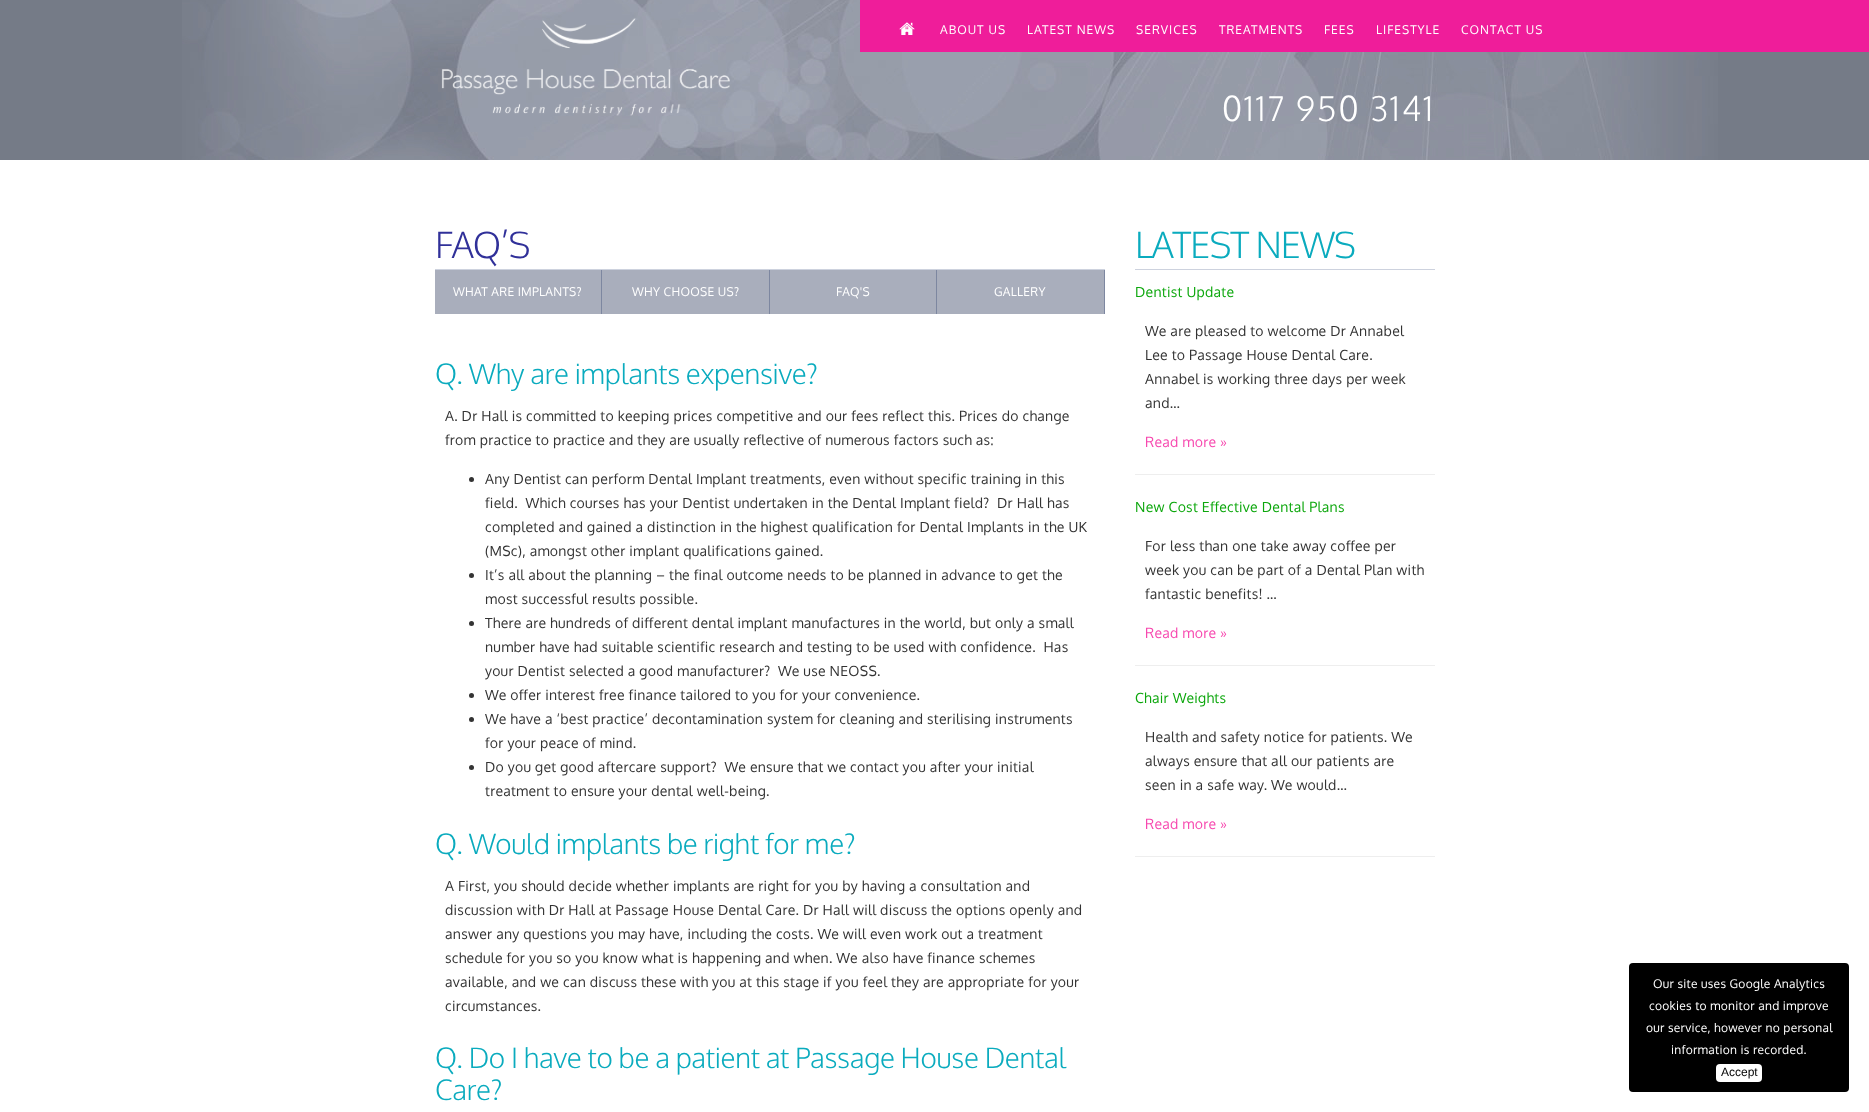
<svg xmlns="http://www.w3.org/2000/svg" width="1869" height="1112">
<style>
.a{font:12px Oxygen;letter-spacing:1px;fill:#fff}
.b{font:300 34px Oxygen;letter-spacing:1.75px;fill:#fff}
.c{font:300 36px Oxygen;letter-spacing:-1px;fill:#303099}
.d{font:12px Oxygen;letter-spacing:0.28px;fill:#fff}
.e{font:300 28px Oxygen;letter-spacing:-0.28px;fill:#0aabbe}
.f{font:14px Oxygen;letter-spacing:0.28px;fill:#333}
.g{font:300 36px Oxygen;letter-spacing:-1px;fill:#0aabbe}
.h{font:14px Oxygen;letter-spacing:0.28px;fill:#0ca70c}
.i{font:14px Oxygen;letter-spacing:0.28px;fill:#f748af}
.j{font:12px Liberation Sans;fill:#000}
</style>
<rect width="100%" height="100%" fill="#757b87"/>
<image href="1.png" x="182" y="0" width="1536" height="160"/>
<path fill="#ef1d9a" d="M860 0h1009v52H860z"/>
<image href="2.png" x="441" y="18" width="289" height="98"/>
<image href="3.png" x="899" y="22" width="16" height="13"/>
<path fill="#fff" d="M0 160h1869v952H0z"/>
<path fill="#cdd2de" d="M435 269h670v1H435z"/>
<path fill="#a9aebc" d="M435 270h166v44H435z"/>
<path fill="#7d87a0" d="M601 270h1v44H601z"/>
<path fill="#a9aebc" d="M602 270h167v44H602z"/>
<path fill="#7d87a0" d="M769 270h1v44H769z"/>
<path fill="#a9aebc" d="M770 270h166v44H770z"/>
<path fill="#7d87a0" d="M936 270h1v44H936z"/>
<path fill="#a9aebc" d="M937 270h167v44H937z"/>
<path fill="#7d87a0" d="M1104 270h1v44H1104z"/>
<circle fill="#333" cx="471.5" cy="479.5" r="2.5"/>
<circle fill="#333" cx="471.5" cy="575.5" r="2.5"/>
<circle fill="#333" cx="471.5" cy="623.5" r="2.5"/>
<circle fill="#333" cx="471.5" cy="695.5" r="2.5"/>
<circle fill="#333" cx="471.5" cy="719.5" r="2.5"/>
<circle fill="#333" cx="471.5" cy="767.5" r="2.5"/>
<path fill="#cdd2de" d="M1135 269h300v1H1135z"/>
<path fill="#eee" d="M1135 474h300v1H1135z"/>
<path fill="#eee" d="M1135 665h300v1H1135z"/>
<path fill="#eee" d="M1135 856h300v1H1135z"/>
<rect fill="#000" x="1629" y="963" width="220" height="129" rx="4"/>
<rect fill="#fff" x="1716" y="1064" width="46" height="18" rx="4"/>
<text class="a" x="940" y="34">ABOUT US</text>
<text class="a" x="1027" y="34">LATEST NEWS</text>
<text class="a" x="1136" y="34">SERVICES</text>
<text class="a" x="1219" y="34">TREATMENTS</text>
<text class="a" x="1324" y="34">FEES</text>
<text class="a" x="1376" y="34">LIFESTYLE</text>
<text class="a" x="1461" y="34">CONTACT US</text>
<text class="b" x="1222" y="121">0117 950 3141</text>
<text class="c" x="435" y="258">FAQ’S</text>
<text class="d" x="453" y="296">WHAT ARE IMPLANTS?</text>
<text class="d" x="632" y="296">WHY CHOOSE US?</text>
<text class="d" x="836" y="296">FAQ'S</text>
<text class="d" x="994" y="296">GALLERY</text>
<text class="e" x="435" y="384">Q. Why are implants expensive?</text>
<text class="f" x="445" y="421">A. Dr Hall is committed to keeping prices competitive and our fees reflect this. Prices do change</text>
<text class="f" x="445" y="445">from practice to practice and they are usually reflective of numerous factors such as:</text>
<text class="f" x="485" y="484">Any Dentist can perform Dental Implant treatments, even without specific training in this</text>
<text class="f" xml:space="preserve" x="485" y="508">field.  Which courses has your Dentist undertaken in the Dental Implant field?  Dr Hall has</text>
<text class="f" x="485" y="532">completed and gained a distinction in the highest qualification for Dental Implants in the UK</text>
<text class="f" x="485" y="556">(MSc), amongst other implant qualifications gained.</text>
<text class="f" x="485" y="580">It’s all about the planning – the final outcome needs to be planned in advance to get the</text>
<text class="f" x="485" y="604">most successful results possible.</text>
<text class="f" x="485" y="628">There are hundreds of different dental implant manufactures in the world, but only a small</text>
<text class="f" xml:space="preserve" x="485" y="652">number have had suitable scientific research and testing to be used with confidence.  Has</text>
<text class="f" xml:space="preserve" x="485" y="676">your Dentist selected a good manufacturer?  We use NEOSS.</text>
<text class="f" x="485" y="700">We offer interest free finance tailored to you for your convenience.</text>
<text class="f" x="485" y="724">We have a ‘best practice’ decontamination system for cleaning and sterilising instruments</text>
<text class="f" x="485" y="748">for your peace of mind.</text>
<text class="f" xml:space="preserve" x="485" y="772">Do you get good aftercare support?  We ensure that we contact you after your initial</text>
<text class="f" x="485" y="796">treatment to ensure your dental well-being.</text>
<text class="e" x="435" y="854">Q. Would implants be right for me?</text>
<text class="f" x="445" y="891">A First, you should decide whether implants are right for you by having a consultation and</text>
<text class="f" x="445" y="915">discussion with Dr Hall at Passage House Dental Care. Dr Hall will discuss the options openly and</text>
<text class="f" x="445" y="939">answer any questions you may have, including the costs. We will even work out a treatment</text>
<text class="f" x="445" y="963">schedule for you so you know what is happening and when. We also have finance schemes</text>
<text class="f" x="445" y="987">available, and we can discuss these with you at this stage if you feel they are appropriate for your</text>
<text class="f" x="445" y="1011">circumstances.</text>
<text class="e" x="435" y="1068">Q. Do I have to be a patient at Passage House Dental</text>
<text class="e" x="435" y="1100">Care?</text>
<text class="g" x="1135" y="258">LATEST NEWS</text>
<text class="h" x="1135" y="297">Dentist Update</text>
<text class="f" x="1145" y="336">We are pleased to welcome Dr Annabel</text>
<text class="f" x="1145" y="360">Lee to Passage House Dental Care.</text>
<text class="f" x="1145" y="384">Annabel is working three days per week</text>
<text class="f" x="1145" y="408">and…</text>
<text class="i" x="1145" y="447">Read more »</text>
<text class="h" x="1135" y="512">New Cost Effective Dental Plans</text>
<text class="f" x="1145" y="551">For less than one take away coffee per</text>
<text class="f" x="1145" y="575">week you can be part of a Dental Plan with</text>
<text class="f" x="1145" y="599">fantastic benefits! …</text>
<text class="i" x="1145" y="638">Read more »</text>
<text class="h" x="1135" y="703">Chair Weights</text>
<text class="f" x="1145" y="742">Health and safety notice for patients. We</text>
<text class="f" x="1145" y="766">always ensure that all our patients are</text>
<text class="f" x="1145" y="790">seen in a safe way. We would…</text>
<text class="i" x="1145" y="829">Read more »</text>
<text class="d" x="1653" y="988">Our site uses Google Analytics</text>
<text class="d" x="1649" y="1010">cookies to monitor and improve</text>
<text class="d" x="1646" y="1032">our service, however no personal</text>
<text class="d" x="1671" y="1054">information is recorded.</text>
<text class="j" x="1721" y="1076">Accept</text>
</svg>
